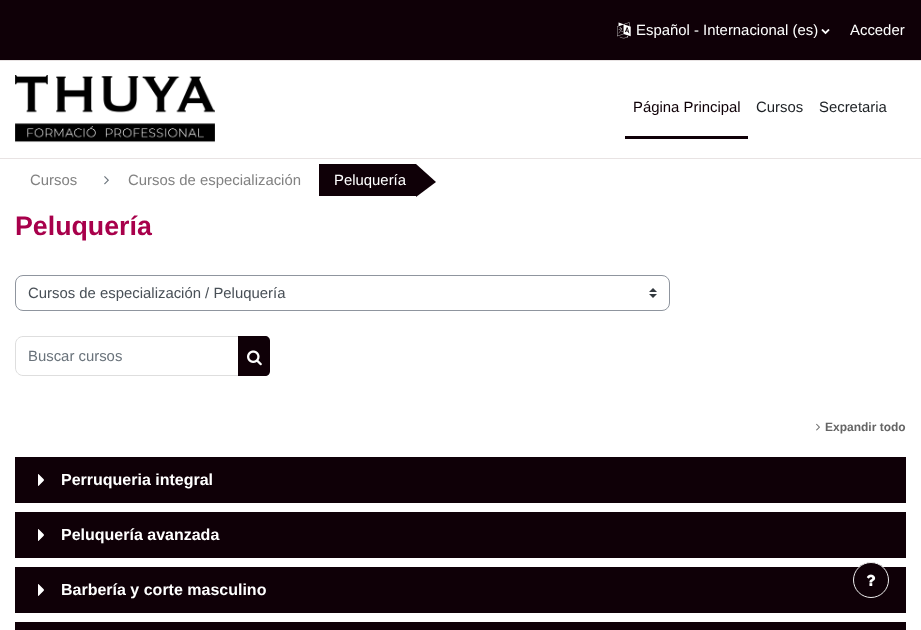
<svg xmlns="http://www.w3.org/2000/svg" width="921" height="630">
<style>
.a{font:14.9px Liberation Sans;fill:#fff}
.b{font:14.9px Liberation Sans;fill:#0f0007}
.c{font:14.9px Liberation Sans;fill:#1d2125}
.d{font:14.9px Liberation Sans;fill:#828282}
.e{font:bold 26.75px Liberation Sans;fill:#a8004b}
.f{font:14.9px Liberation Sans;fill:#495057}
.g{font:14.9px Liberation Sans;fill:#6a737b}
.h{font:bold 12px Liberation Sans;fill:#656565}
.i{font:bold 16px Liberation Sans;fill:#fff}
</style>
<rect width="100%" height="100%" fill="#fff"/>
<path fill="#0f0007" d="M0 0h921v60H0z"/>
<path fill="#e8e3e3" d="M0 60h921v1H0z"/>
<image href="1.png" x="617" y="22" width="14" height="17"/>
<image href="2.png" x="821" y="29" width="9" height="6"/>
<path fill="#e8e3e3" d="M0 158h921v1H0z"/>
<image href="3.png" x="15" y="75" width="200" height="68"/>
<path fill="#0f0007" d="M625 136h123v3H625z"/>
<image href="4.png" x="104" y="176" width="5" height="9"/>
<path fill="#0f0007" d="M319 164h97v32H319z"/>
<path fill="#0f0007" d="M416 197v-33l20 18z"/>
<image href="5.png" x="649" y="288" width="8" height="10"/>
<rect fill="none" stroke="#8f959e" x="15.5" y="275.5" width="654" height="35" rx="7.5"/>
<path fill="none" stroke="#dedede" d="M23 336.5h215.5v39h-215.5c-4 0-7.5-3.5-7.5-7.5v-24c0-4 3.5-7.5 7.5-7.5z"/>
<path fill="#0f0007" d="M238 336h27c3 0 5 2 5 5v30c0 3-2 5-5 5h-27z"/>
<image href="6.png" x="247" y="350" width="15" height="16"/>
<image href="7.png" x="816" y="423" width="4" height="8"/>
<path fill="#0f0007" d="M15 457h891v46H15z"/>
<image href="8.png" x="38" y="474" width="6" height="12"/>
<path fill="#0f0007" d="M15 512h891v46H15z"/>
<image href="8.png" x="38" y="529" width="6" height="12"/>
<path fill="#0f0007" d="M15 567h891v46H15z"/>
<image href="8.png" x="38" y="584" width="6" height="12"/>
<path fill="#0f0007" d="M15 622h891v8H15z"/>
<circle fill="#0f0007" stroke="#eee" cx="871" cy="580" r="17.5"/>
<image href="9.png" x="866" y="574" width="10" height="12"/>
<text class="a" x="636" y="35">Español - Internacional (es)</text>
<text class="a" x="850" y="35">Acceder</text>
<text class="b" x="633" y="112">Página Principal</text>
<text class="c" x="756" y="112">Cursos</text>
<text class="c" x="819" y="112">Secretaria</text>
<text class="d" x="30" y="185">Cursos</text>
<text class="d" x="128" y="185">Cursos de especialización</text>
<text class="a" x="334" y="185">Peluquería</text>
<text class="e" x="15" y="235">Peluquería</text>
<text class="f" x="28" y="298">Cursos de especialización / Peluquería</text>
<text class="g" x="28" y="361">Buscar cursos</text>
<text class="h" x="825" y="431">Expandir todo</text>
<text class="i" x="61" y="485">Perruqueria integral</text>
<text class="i" x="61" y="540">Peluquería avanzada</text>
<text class="i" x="61" y="595">Barbería y corte masculino</text>
</svg>
